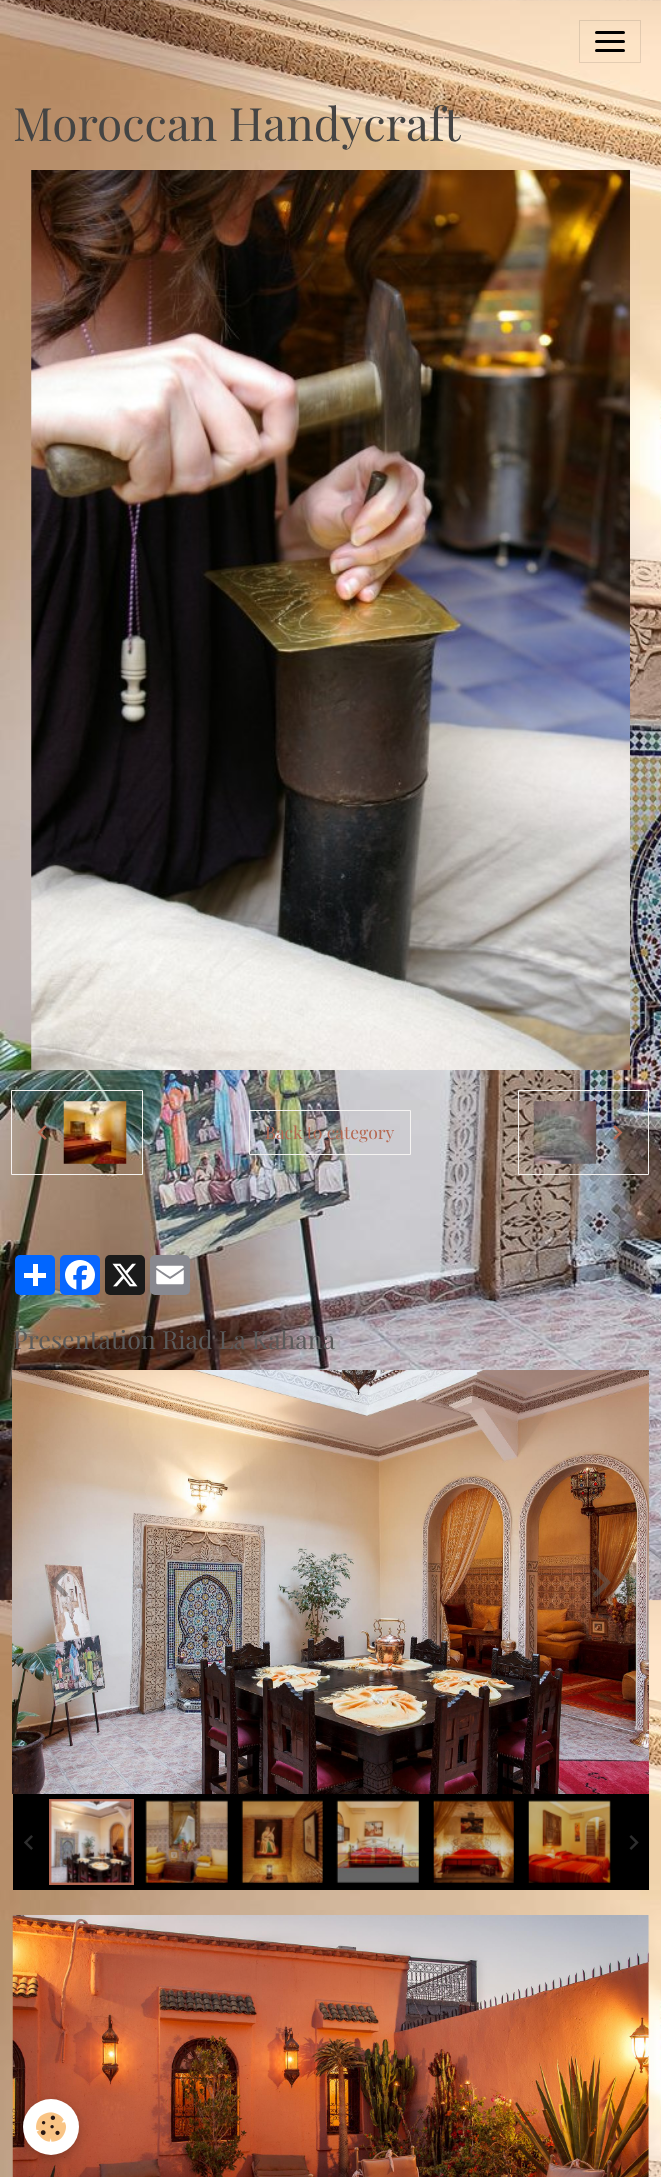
<svg xmlns="http://www.w3.org/2000/svg" width="661" height="2177">
<style>
.a{font:46px Playfair Display;fill:#444}
.b{font:17.5px Playfair Display;fill:#b56953}
.c{font:25px Playfair Display;fill:#5b5b5b}
</style>
<rect width="100%" height="100%" fill="#fff"/>
<image href="1.png" x="0" y="0" width="661" height="2177"/>
<path fill="none" stroke="#0000001a" d="M579.5 20.5h61v42H579.5z"/>
<rect fill="#000" x="595" y="31" width="30" height="3" rx="1.5"/>
<rect fill="#000" x="595" y="40" width="30" height="3" rx="1.5"/>
<rect fill="#000" x="595" y="49" width="30" height="3" rx="1.5"/>
<image href="2.png" x="31" y="170" width="599" height="900"/>
<path fill="none" stroke="#f6f4f2" d="M11.5 1090.5h131v84H11.5z"/>
<image href="3.png" x="37" y="1125" width="10" height="15"/>
<image href="4.png" x="63" y="1101" width="64" height="63"/>
<path fill="none" stroke="#f6f4f2" d="M249.5 1110.5h161v44H249.5z"/>
<path fill="none" stroke="#f6f4f2" d="M518.5 1090.5h130v84H518.5z"/>
<image href="5.png" x="533" y="1101" width="64" height="63"/>
<image href="6.png" x="613" y="1125" width="10" height="15"/>
<rect fill="#0166ff" x="15" y="1255" width="40" height="40" rx="5"/>
<path fill="#fff" d="M33 1264h5v22H33z"/>
<path fill="#fff" d="M24 1273h22v5H24z"/>
<rect fill="#0866ff" x="60" y="1255" width="40" height="40" rx="5"/>
<image href="7.png" x="65" y="1260" width="30" height="30"/>
<rect fill="#1a1a1a" x="105" y="1255" width="40" height="40" rx="5"/>
<image href="8.png" x="112" y="1263" width="26" height="24"/>
<rect fill="#888990" x="150" y="1255" width="40" height="40" rx="5"/>
<image href="9.png" x="156" y="1265" width="28" height="20"/>
<image href="10.png" x="12" y="1370" width="637" height="424"/>
<path fill="#5b5b5b80" d="M68.5 1571l-11.5 11.5l11.5 11.5l-3.5 3.5l-15-15l15-15z"/>
<path fill="#5b5b5b80" d="M596 1567.5l15 15l-15 15l-3.5-3.5l11.5-11.5l-11.5-11.5z"/>
<path fill="#000" d="M13 1794h636v96H13z"/>
<image href="11.png" x="24" y="1835" width="9" height="15"/>
<path fill="none" stroke="#b56953" stroke-width="3" d="M50.5 1800.5h82v83H50.5z"/>
<image href="12.png" x="50" y="1800" width="82" height="83"/>
<image href="13.png" x="145" y="1800" width="83" height="83"/>
<image href="14.png" x="241" y="1800" width="82" height="83"/>
<image href="15.png" x="336" y="1800" width="83" height="83"/>
<image href="16.png" x="433" y="1800" width="81" height="83"/>
<image href="17.png" x="528" y="1800" width="83" height="83"/>
<image href="18.png" x="629" y="1835" width="10" height="15"/>
<image href="19.png" x="12" y="1915" width="637" height="262"/>
<rect fill="#0000003d" filter="blur(6px)" x="23" y="2103" width="56" height="56" rx="28"/>
<circle fill="#fff" cx="51" cy="2127" r="28"/>
<image href="20.png" x="36" y="2112" width="30" height="30"/>
<text class="a" x="13" y="141">Moroccan Handycraft</text>
<text class="b" x="265" y="1139">Back to category</text>
<text class="c" x="13" y="1349">Presentation Riad La Kahana</text>
</svg>
